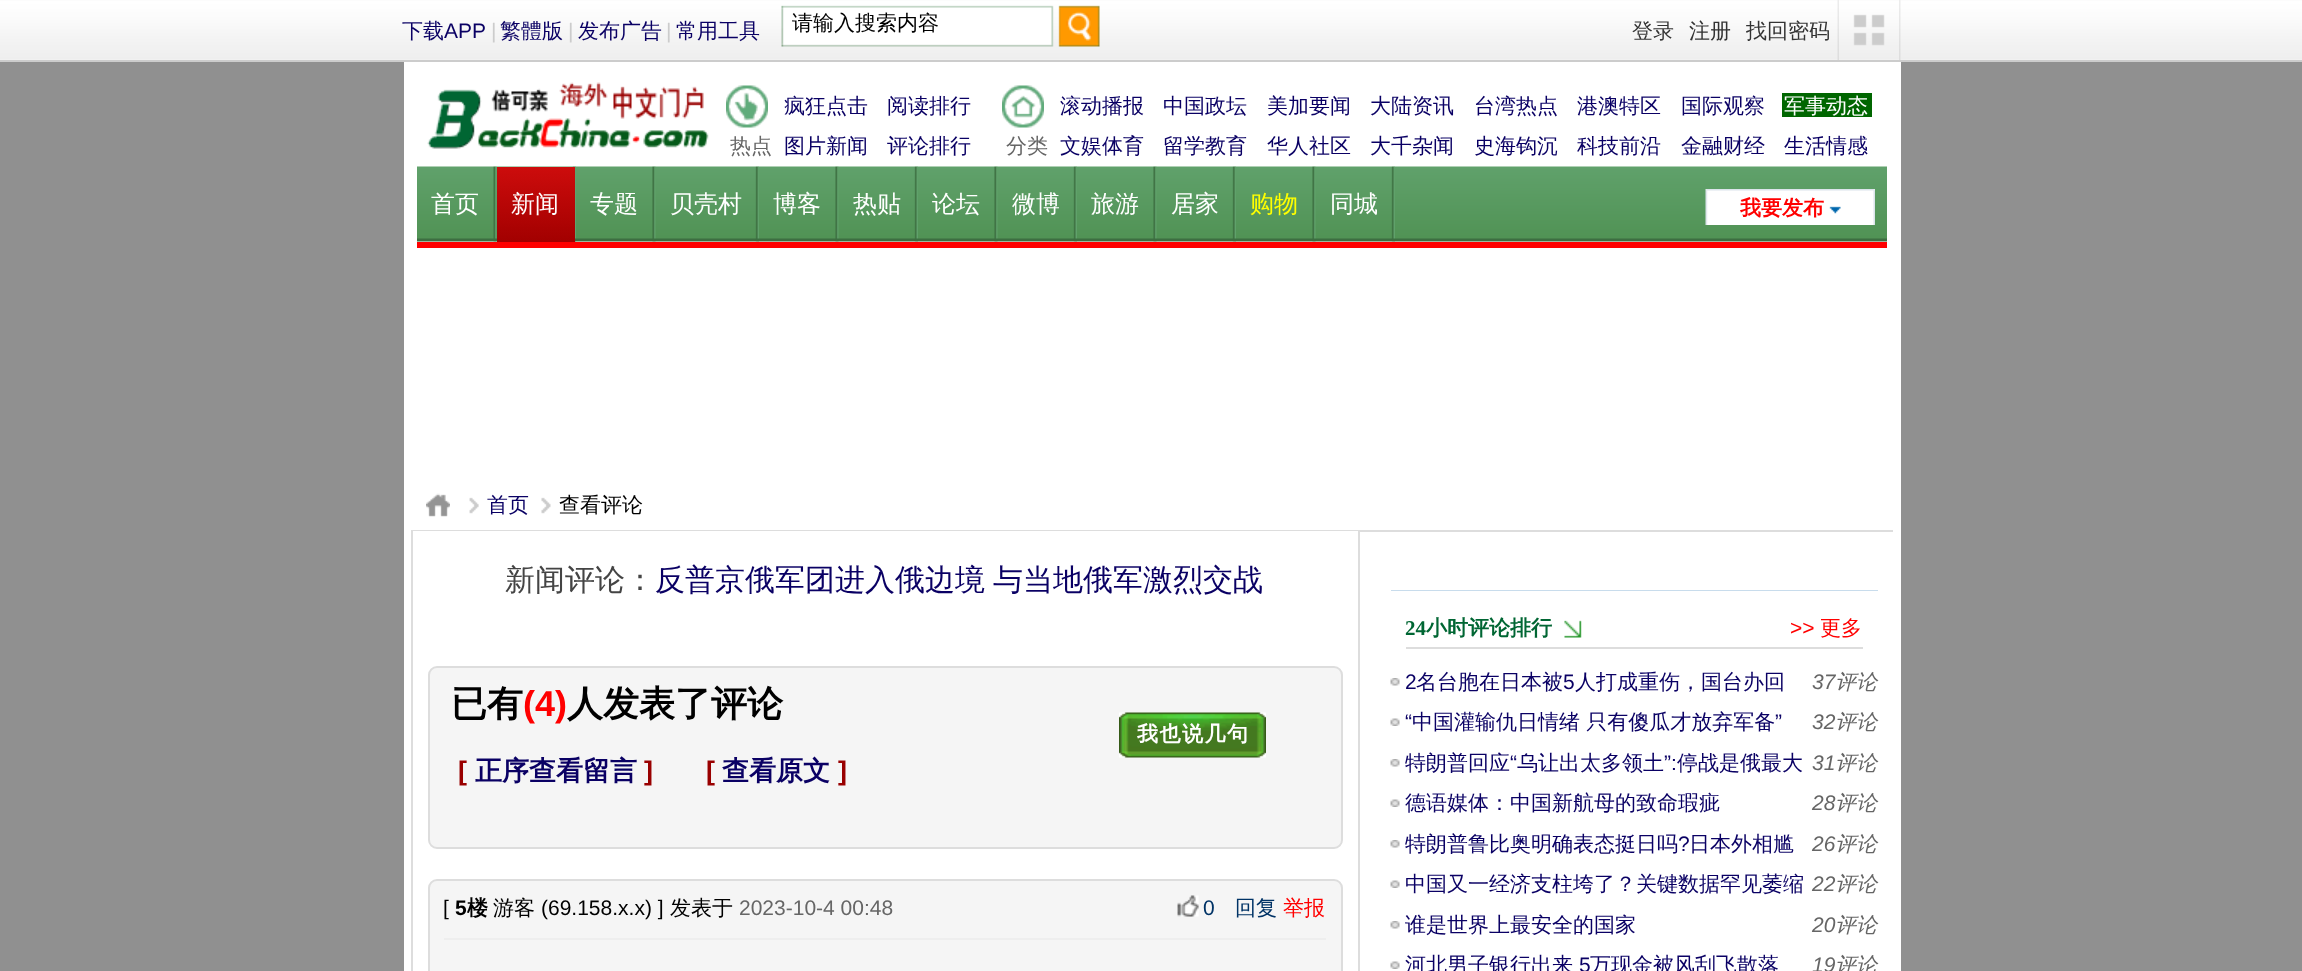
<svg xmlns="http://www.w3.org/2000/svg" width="2302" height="971">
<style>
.a{font:500 21px WenQuanYi Zen Hei;fill:#0a0064}
.b{font:21px Liberation Sans;fill:#0a0064}
.c{font:21px Liberation Sans;fill:#ccc}
.d{font:500 21px WenQuanYi Zen Hei;fill:#000}
.e{font:500 21px WenQuanYi Zen Hei;fill:#333}
.f{font:500 21px WenQuanYi Zen Hei;fill:#666}
.g{font:500 21px WenQuanYi Zen Hei;fill:#fff}
.h{font:500 24px WenQuanYi Zen Hei;fill:#fff}
.i{font:500 24px WenQuanYi Zen Hei;fill:#ff0}
.j{font:bold 21px WenQuanYi Zen Hei;fill:#f00}
.k{font:500 30px WenQuanYi Zen Hei;fill:#444}
.l{font:500 30px WenQuanYi Zen Hei;fill:#0a0064}
.m{font:bold 36px WenQuanYi Zen Hei;fill:#000}
.n{font:bold 36px Liberation Sans;fill:#f00}
.o{font:bold 21px WenQuanYi Zen Hei;letter-spacing:1.5px;fill:#fff}
.p{font:bold 27px Liberation Sans;fill:#900}
.q{font:bold 27px WenQuanYi Zen Hei;fill:#0a0064}
.r{font:21px Liberation Sans;fill:#000}
.s{font:bold 21px Liberation Sans;fill:#000}
.t{font:bold 21px WenQuanYi Zen Hei;fill:#000}
.u{font:21px Liberation Sans;fill:#666}
.v{font:21px Liberation Sans;fill:#036}
.w{font:500 21px WenQuanYi Zen Hei;fill:#036}
.x{font:500 21px WenQuanYi Zen Hei;fill:#f00}
.y{font:bold 21px Liberation Serif;fill:#063}
.z{font:bold 21px WenQuanYi Zen Hei;fill:#063}
.a1{font:21px Liberation Sans;fill:#f00}
.b1{font:italic 21px Liberation Sans;fill:#666}
.c1{font:italic 500 21px WenQuanYi Zen Hei;fill:#666}
</style>
<defs>
<linearGradient id="g1" gradientUnits="userSpaceOnUse" x1="536" y1="167" x2="536" y2="242"><stop offset="0" stop-color="#cd0c0c"/><stop offset="1" stop-color="#a20000"/></linearGradient>
</defs>
<rect width="100%" height="100%" fill="#909090"/>
<image href="1.png" x="0" y="0" width="2302" height="60"/>
<path fill="#ccc" d="M0 60h2302v2H0z"/>
<image href="2.png" x="781" y="5" width="319" height="42"/>
<image href="3.png" x="1837" y="0" width="2" height="60"/>
<image href="4.png" x="1853" y="14" width="32" height="32"/>
<image href="5.png" x="1899" y="0" width="2" height="60"/>
<path fill="#fff" d="M404 62h1497v909H404z"/>
<image href="6.png" x="427" y="82" width="282" height="67"/>
<image href="7.png" x="726" y="85" width="42" height="43"/>
<image href="8.png" x="1002" y="85" width="42" height="43"/>
<path fill="#060" d="M1782 93h90v24H1782z"/>
<image href="9.png" x="417" y="166" width="1470" height="76"/>
<path fill="#f00" d="M417 242h1470v6H417z"/>
<image href="10.png" x="493" y="166" width="4" height="76"/>
<image href="11.png" x="572" y="166" width="4" height="76"/>
<path fill="url(#g1)" d="M497 167h78v75H497z"/>
<image href="12.png" x="652" y="166" width="4" height="76"/>
<image href="13.png" x="755" y="166" width="4" height="76"/>
<image href="12.png" x="835" y="166" width="4" height="76"/>
<image href="11.png" x="914" y="166" width="4" height="76"/>
<image href="12.png" x="994" y="166" width="4" height="76"/>
<image href="11.png" x="1073" y="166" width="4" height="76"/>
<image href="12.png" x="1153" y="166" width="4" height="76"/>
<image href="14.png" x="1232" y="166" width="4" height="76"/>
<image href="12.png" x="1312" y="166" width="4" height="76"/>
<image href="11.png" x="1391" y="166" width="4" height="76"/>
<image href="15.png" x="1705" y="189" width="170" height="36"/>
<image href="16.png" x="426" y="493" width="24" height="24"/>
<image href="17.png" x="469" y="497" width="10" height="17"/>
<image href="18.png" x="541" y="497" width="10" height="17"/>
<path fill="#ddd" d="M411 530h1482v2H411z"/>
<path fill="#fff" d="M413 531h945v1H413z"/>
<path fill="#ddd" d="M1358 531h2v440H1358z"/>
<path fill="#ddd" d="M411 531h2v440H411z"/>
<rect fill="#f5f5f5" stroke="#ddd" stroke-width="2" x="429" y="667" width="913" height="181" rx="8"/>
<image href="19.png" x="1119" y="712" width="147" height="46"/>
<rect fill="#f5f5f5" stroke="#ddd" stroke-width="2" x="429" y="880" width="913" height="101" rx="8"/>
<path fill="#eee" d="M444 938h882v2H444z"/>
<image href="20.png" x="1177" y="895" width="22" height="22"/>
<path fill="#c8dcec" d="M1391 590h487v1H1391z"/>
<path fill="#ddd" d="M1406 647h457v2H1406z"/>
<image href="21.png" x="1564" y="620" width="18" height="18"/>
<image href="22.png" x="1390" y="678" width="10" height="8"/>
<image href="23.png" x="1390" y="718" width="10" height="8"/>
<image href="22.png" x="1390" y="759" width="10" height="8"/>
<image href="23.png" x="1390" y="799" width="10" height="8"/>
<image href="22.png" x="1390" y="840" width="10" height="8"/>
<image href="23.png" x="1390" y="880" width="10" height="8"/>
<image href="22.png" x="1390" y="921" width="10" height="8"/>
<image href="23.png" x="1390" y="961" width="10" height="8"/>
<text class="a" x="402" y="38">下载</text>
<text class="b" x="444" y="38">APP</text>
<text class="c" x="491" y="38">|</text>
<text class="a" x="500" y="38">繁體版</text>
<text class="c" x="568" y="38">|</text>
<text class="a" x="578" y="38">发布广告</text>
<text class="c" x="666" y="38">|</text>
<text class="a" x="676" y="38">常用工具</text>
<text class="d" x="792" y="30">请输入搜索内容</text>
<text class="e" x="1632" y="38">登录</text>
<text class="e" x="1689" y="38">注册</text>
<text class="e" x="1746" y="38">找回密码</text>
<text class="f" x="730" y="153">热点</text>
<text class="a" x="784" y="113">疯狂点击</text>
<text class="a" x="887" y="113">阅读排行</text>
<text class="a" x="784" y="153">图片新闻</text>
<text class="a" x="887" y="153">评论排行</text>
<text class="f" x="1006" y="153">分类</text>
<text class="a" x="1060" y="113">滚动播报</text>
<text class="a" x="1163" y="113">中国政坛</text>
<text class="a" x="1267" y="113">美加要闻</text>
<text class="a" x="1370" y="113">大陆资讯</text>
<text class="a" x="1474" y="113">台湾热点</text>
<text class="a" x="1577" y="113">港澳特区</text>
<text class="a" x="1681" y="113">国际观察</text>
<text class="g" x="1784" y="113">军事动态</text>
<text class="a" x="1060" y="153">文娱体育</text>
<text class="a" x="1163" y="153">留学教育</text>
<text class="a" x="1267" y="153">华人社区</text>
<text class="a" x="1370" y="153">大千杂闻</text>
<text class="a" x="1474" y="153">史海钩沉</text>
<text class="a" x="1577" y="153">科技前沿</text>
<text class="a" x="1681" y="153">金融财经</text>
<text class="a" x="1784" y="153">生活情感</text>
<text class="h" x="431" y="212">首页</text>
<text class="h" x="511" y="212">新闻</text>
<text class="h" x="590" y="212">专题</text>
<text class="h" x="670" y="212">贝壳村</text>
<text class="h" x="773" y="212">博客</text>
<text class="h" x="853" y="212">热贴</text>
<text class="h" x="932" y="212">论坛</text>
<text class="h" x="1012" y="212">微博</text>
<text class="h" x="1091" y="212">旅游</text>
<text class="h" x="1171" y="212">居家</text>
<text class="i" x="1250" y="212">购物</text>
<text class="h" x="1330" y="212">同城</text>
<text class="j" x="1740" y="215">我要发布</text>
<text class="a" x="487" y="512">首页</text>
<text class="d" x="559" y="512">查看评论</text>
<text class="k" x="505" y="590">新闻评论：</text>
<text class="l" x="655" y="590" word-spacing="-1">反普京俄军团进入俄边境 与当地俄军激烈交战</text>
<text class="m" x="451" y="716">已有</text>
<text class="n" x="523" y="716">(4)</text>
<text class="m" x="567" y="716">人发表了评论</text>
<text class="o" x="1137" y="741">我也说几句</text>
<text class="p" x="458" y="780">[</text>
<text class="q" x="475" y="780">正序查看留言</text>
<text class="p" x="644" y="780">]</text>
<text class="p" x="706" y="780">[</text>
<text class="q" x="722" y="780">查看原文</text>
<text class="p" x="838" y="780">]</text>
<text class="r" x="443" y="915">[</text>
<text class="s" x="455" y="915">5</text>
<text class="t" x="467" y="915">楼</text>
<text class="d" x="493" y="915">游客</text>
<text class="r" x="541" y="915">(69.158.x.x) ]</text>
<text class="d" x="670" y="915">发表于</text>
<text class="u" x="739" y="915">2023-10-4 00:48</text>
<text class="v" x="1203" y="915">0</text>
<text class="w" x="1235" y="915">回复</text>
<text class="x" x="1283" y="915">举报</text>
<text class="y" x="1405" y="635">24</text>
<text class="z" x="1426" y="635">小时评论排行</text>
<text class="a1" x="1790" y="635">&gt;&gt;</text>
<text class="x" x="1820" y="635">更多</text>
<text class="b" x="1405" y="689">2</text>
<text class="a" x="1416" y="689">名台胞在日本被</text>
<text class="b" x="1563" y="689">5</text>
<text class="a" x="1575" y="689">人打成重伤，国台办回</text>
<text class="b1" x="1812" y="689">37</text>
<text class="c1" x="1835" y="689">评论</text>
<text class="b" x="1405" y="729">“</text>
<text class="a" x="1412" y="729">中国灌输仇日情绪 只有傻瓜才放弃军备</text>
<text class="b" x="1775" y="729">”</text>
<text class="b1" x="1812" y="729">32</text>
<text class="c1" x="1835" y="729">评论</text>
<text class="a" x="1405" y="770">特朗普回应</text>
<text class="b" x="1510" y="770">“</text>
<text class="a" x="1517" y="770">乌让出太多领土</text>
<text class="b" x="1664" y="770">”:</text>
<text class="a" x="1677" y="770">停战是俄最大</text>
<text class="b1" x="1812" y="770">31</text>
<text class="c1" x="1835" y="770">评论</text>
<text class="a" x="1405" y="810">德语媒体：中国新航母的致命瑕疵</text>
<text class="b1" x="1812" y="810">28</text>
<text class="c1" x="1835" y="810">评论</text>
<text class="a" x="1405" y="851">特朗普鲁比奥明确表态挺日吗</text>
<text class="b" x="1678" y="851">?</text>
<text class="a" x="1689" y="851">日本外相尴</text>
<text class="b1" x="1812" y="851">26</text>
<text class="c1" x="1835" y="851">评论</text>
<text class="a" x="1405" y="891">中国又一经济支柱垮了？关键数据罕见萎缩</text>
<text class="b1" x="1812" y="891">22</text>
<text class="c1" x="1835" y="891">评论</text>
<text class="a" x="1405" y="932">谁是世界上最安全的国家</text>
<text class="b1" x="1812" y="932">20</text>
<text class="c1" x="1835" y="932">评论</text>
<text class="a" x="1405" y="972">河北男子银行出来</text>
<text class="b" x="1579" y="972">5</text>
<text class="a" x="1590" y="972">万现金被风刮飞散落</text>
<text class="b1" x="1812" y="972">19</text>
<text class="c1" x="1835" y="972">评论</text>
</svg>
